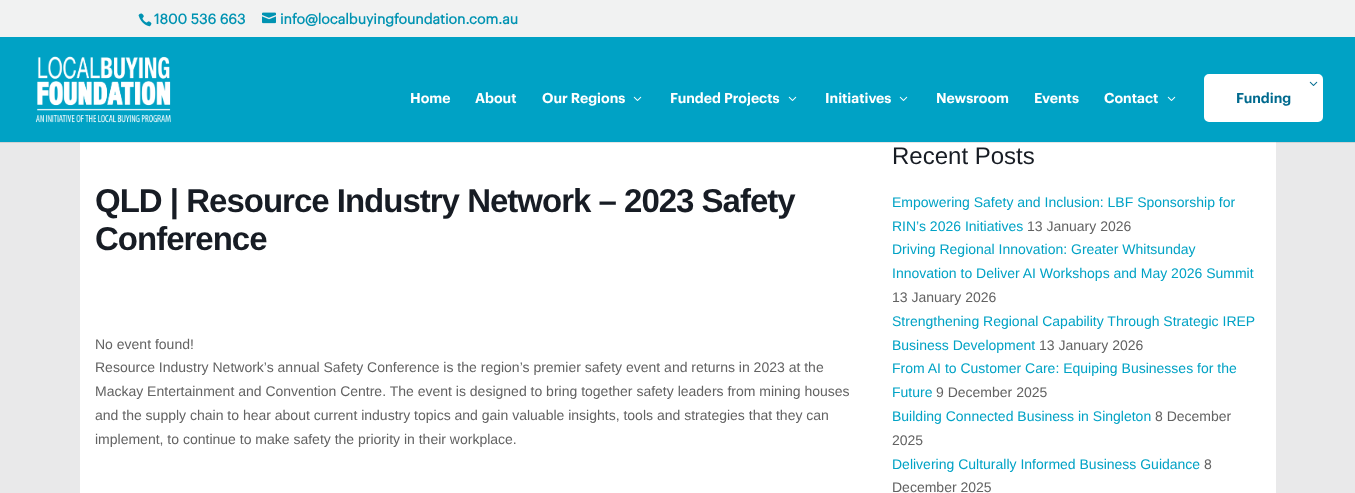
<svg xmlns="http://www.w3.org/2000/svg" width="1355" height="493">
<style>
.a{font:bold 14px Graphik;fill:#0093b2}
.b{font:600 14px Graphik;fill:#fff}
.c{font:600 14px Graphik;fill:#006a8e}
.d{font:bold 33px Liberation Sans;letter-spacing:-1px;fill:#171c24}
.e{font:14px Liberation Sans;fill:#626262}
.f{font:24px Liberation Sans;fill:#171c24}
.g{font:14px Liberation Sans;fill:#00a2c5}
</style>
<rect width="100%" height="100%" fill="#e9e9ea"/>
<path fill="#d2d2d3" d="M0 142h1355v1H0z"/>
<path fill="#f1f2f2" d="M0 0h1355v37H0z"/>
<image href="1.png" x="138" y="13" width="14" height="14"/>
<image href="2.png" x="262" y="12" width="14" height="12"/>
<path fill="#00a2c5" d="M0 37h1355v105H0z"/>
<image href="3.png" x="35" y="56" width="136" height="67"/>
<image href="4.png" x="633" y="96" width="9" height="5"/>
<image href="4.png" x="788" y="96" width="9" height="5"/>
<image href="4.png" x="899" y="96" width="9" height="5"/>
<image href="4.png" x="1167" y="96" width="9" height="5"/>
<rect fill="#fff" stroke="#fff" stroke-width="2" x="1205" y="75" width="117" height="46" rx="4"/>
<image href="5.png" x="1309" y="81" width="9" height="5"/>
<path fill="#fff" d="M80 143h1196v350H80z"/>
<path fill="#e6e6e6" d="M80 142h1196v1H80z"/>
<text class="a" x="154" y="24">1800 536 663</text>
<text class="a" x="280" y="24">info@localbuyingfoundation.com.au</text>
<text class="b" x="410" y="103">Home</text>
<text class="b" x="475" y="103">About</text>
<text class="b" x="542" y="103">Our Regions</text>
<text class="b" x="670" y="103">Funded Projects</text>
<text class="b" x="825" y="103">Initiatives</text>
<text class="b" x="936" y="103">Newsroom</text>
<text class="b" x="1034" y="103">Events</text>
<text class="b" x="1104" y="103">Contact</text>
<text class="c" x="1236" y="103">Funding</text>
<text class="d" x="95" y="212">QLD | Resource Industry Network – 2023 Safety</text>
<text class="d" x="95" y="250">Conference</text>
<text class="e" x="95" y="349">No event found!</text>
<text class="e" x="95" y="372">Resource Industry Network’s annual Safety Conference is the region’s premier safety event and returns in 2023 at the</text>
<text class="e" x="95" y="396">Mackay Entertainment and Convention Centre. The event is designed to bring together safety leaders from mining houses</text>
<text class="e" x="95" y="420">and the supply chain to hear about current industry topics and gain valuable insights, tools and strategies that they can</text>
<text class="e" x="95" y="444">implement, to continue to make safety the priority in their workplace.</text>
<text class="f" x="892" y="164">Recent Posts</text>
<text class="g" x="892" y="207">Empowering Safety and Inclusion: LBF Sponsorship for</text>
<text class="g" x="892" y="231">RIN’s 2026 Initiatives</text>
<text class="e" x="1027" y="231">13 January 2026</text>
<text class="g" x="892" y="254">Driving Regional Innovation: Greater Whitsunday</text>
<text class="g" x="892" y="278">Innovation to Deliver AI Workshops and May 2026 Summit</text>
<text class="e" x="892" y="302">13 January 2026</text>
<text class="g" x="892" y="326">Strengthening Regional Capability Through Strategic IREP</text>
<text class="g" x="892" y="350">Business Development</text>
<text class="e" x="1039" y="350">13 January 2026</text>
<text class="g" x="892" y="373">From AI to Customer Care: Equiping Businesses for the</text>
<text class="g" x="892" y="397">Future</text>
<text class="e" x="936" y="397">9 December 2025</text>
<text class="g" x="892" y="421">Building Connected Business in Singleton</text>
<text class="e" x="1155" y="421">8 December</text>
<text class="e" x="892" y="445">2025</text>
<text class="g" x="892" y="469">Delivering Culturally Informed Business Guidance</text>
<text class="e" x="1204" y="469">8</text>
<text class="e" x="892" y="492">December 2025</text>
</svg>
